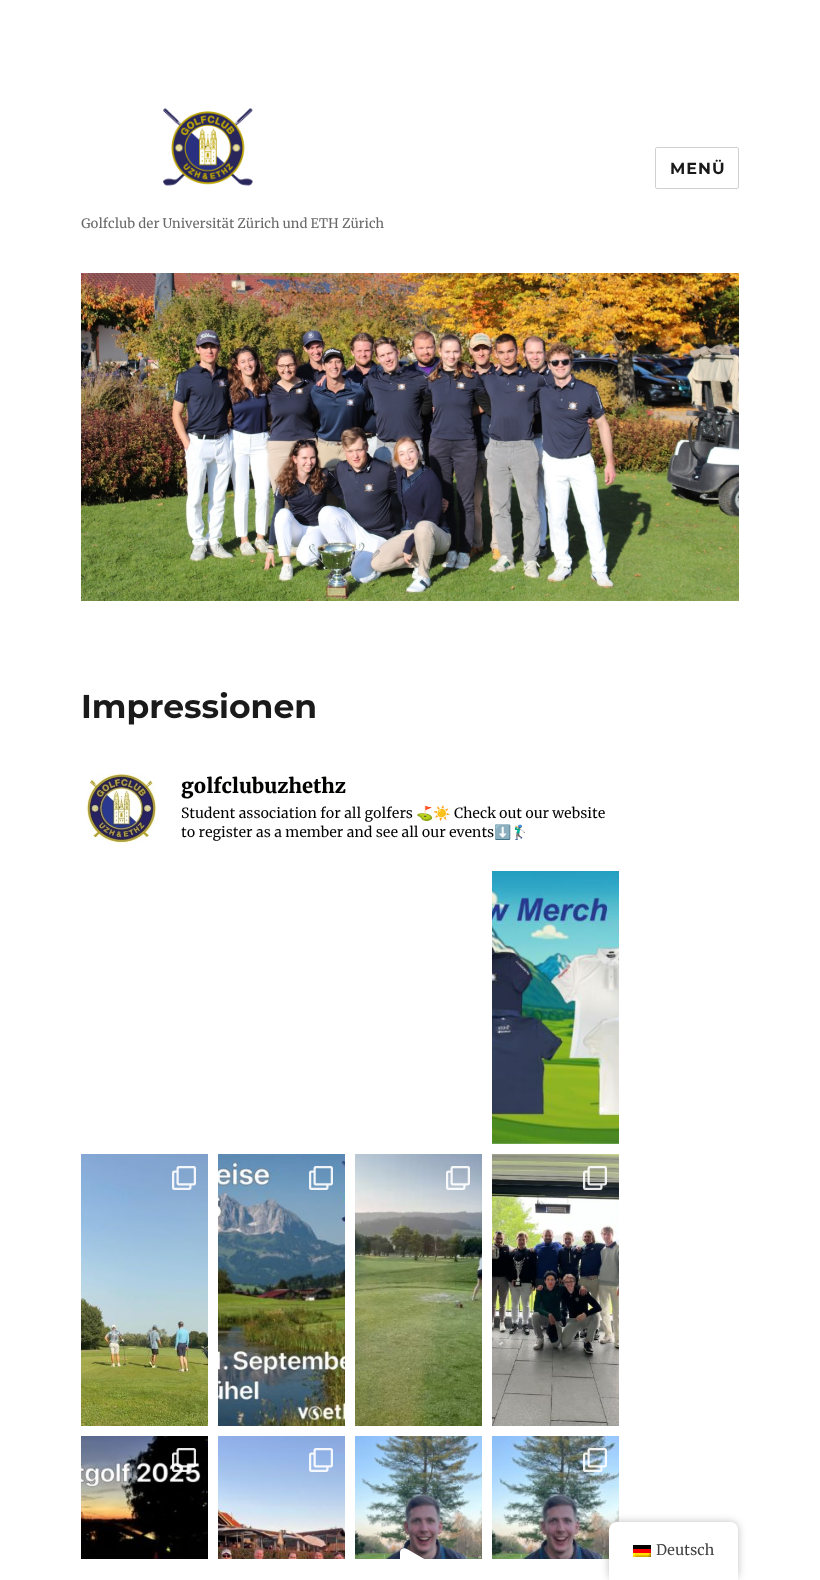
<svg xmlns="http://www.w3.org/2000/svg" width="820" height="1580">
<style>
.a{font:100 16px Montserrat;letter-spacing:1px;fill:#1a1a1a}
.b{font:13px Merriweather;fill:#686868}
.c{font:100 33px Montserrat;fill:#1a1a1a}
.d{font:900 20px Merriweather;fill:#010200}
.e{font:14px Merriweather;fill:#010200}
.f{font:14px Noto Color Emoji;fill:#010200}
.g{font:14.5px Merriweather;fill:#404040}
</style>
<rect width="100%" height="100%" fill="#fff"/>
<rect fill="none" stroke="#d1d1d1" x="655.5" y="147.5" width="83" height="41" rx="1.5"/>
<image href="1.png" x="162" y="108" width="91" height="78"/>
<image href="2.png" x="81" y="273" width="658" height="328"/>
<image href="3.png" x="86" y="773" width="72" height="71"/>
<image href="4.png" x="492" y="871" width="127" height="273"/>
<image href="5.png" x="81" y="1154" width="127" height="272"/>
<image href="6.png" x="172" y="1166" width="24" height="24"/>
<image href="7.png" x="218" y="1154" width="127" height="272"/>
<image href="8.png" x="309" y="1166" width="24" height="24"/>
<image href="9.png" x="355" y="1154" width="127" height="272"/>
<image href="10.png" x="446" y="1166" width="24" height="24"/>
<image href="11.png" x="492" y="1154" width="127" height="272"/>
<image href="12.png" x="583" y="1166" width="24" height="24"/>
<image href="13.png" x="81" y="1436" width="127" height="123"/>
<image href="14.png" x="172" y="1448" width="24" height="24"/>
<image href="15.png" x="218" y="1436" width="127" height="123"/>
<image href="16.png" x="309" y="1448" width="24" height="24"/>
<image href="17.png" x="355" y="1436" width="127" height="123"/>
<path fill="#fff" d="M440 1568l-33-19c-3-2-7 0-7 3v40c0 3 4 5 7 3l33-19c3-2 3-6 0-8z"/>
<image href="18.png" x="492" y="1436" width="127" height="123"/>
<image href="19.png" x="583" y="1448" width="24" height="24"/>
<rect fill="#00000040" filter="blur(4px)" x="609" y="1522" width="129" height="58" rx="8"/>
<path fill="#fff" d="M617 1522h113c4.5 0 8 3.5 8 8v50h-129v-50c0-4.5 3.5-8 8-8z"/>
<image href="20.png" x="633" y="1545" width="18" height="12"/>
<text class="a" x="670" y="174">MENÜ</text>
<text class="b" x="81" y="228">Golfclub der Universität Zürich und ETH Zürich</text>
<text class="c" x="81" y="718">Impressionen</text>
<text class="d" x="181" y="793">golfclubuzhethz</text>
<text class="e" x="181" y="818">Student association for all golfers</text>
<text class="f" x="416" y="818">⛳️☀️</text>
<text class="e" x="454" y="818">Check out our website</text>
<text class="e" x="181" y="837">to register as a member and see all our events</text>
<text class="f" x="494" y="837">⬇️🏌️‍♂️</text>
<text class="g" x="656" y="1555">Deutsch</text>
</svg>
